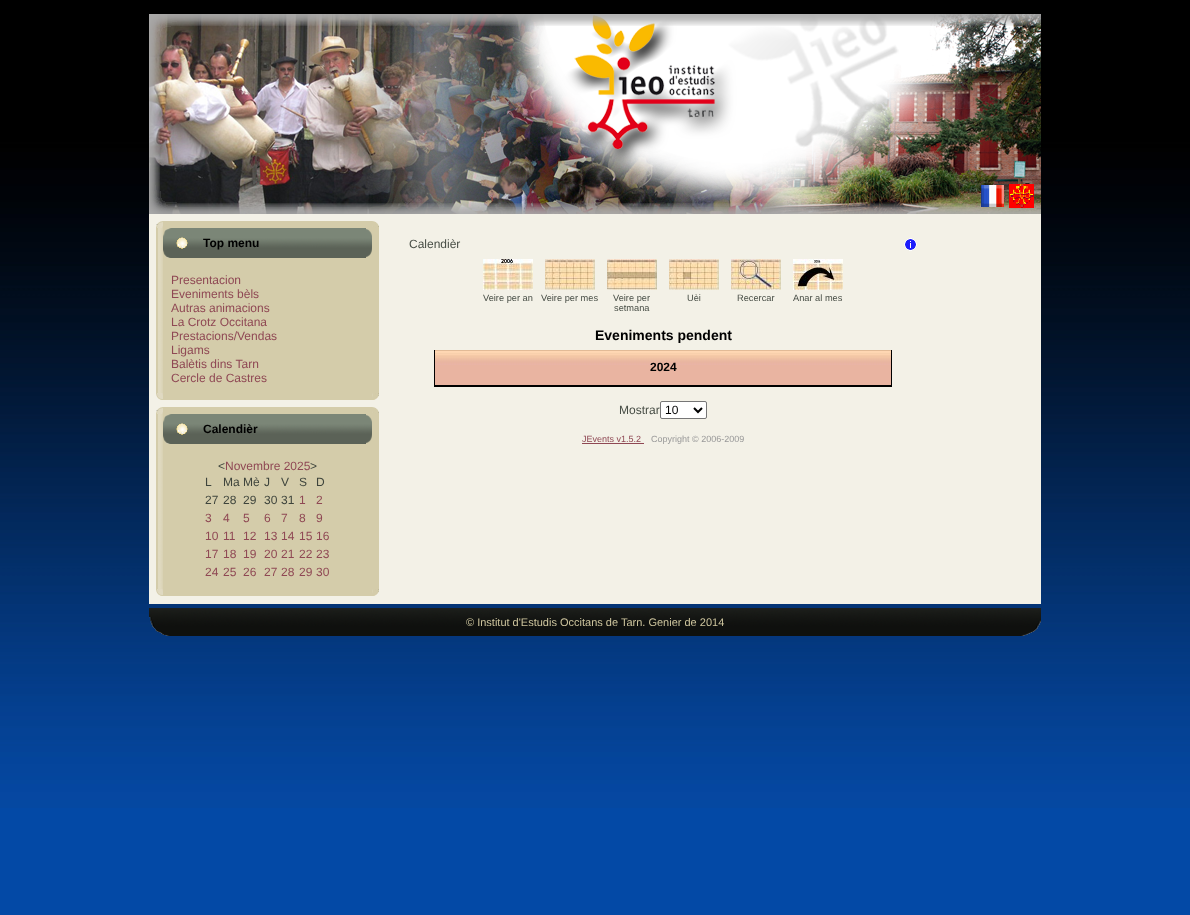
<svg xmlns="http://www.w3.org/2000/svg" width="1190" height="915">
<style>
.a{font:bold 12px Liberation Sans;fill:#000}
.b{font:12px Liberation Sans;fill:#8f4854}
.c{font:12px Liberation Sans;fill:#3e443c}
.d{font:12px Liberation Sans;fill:#484e46}
.e{font:9.25px Liberation Sans;fill:#484e46}
.f{font:bold 14px Liberation Sans;fill:#000}
.g{font:12px Liberation Sans;fill:#000}
.h{font:9px Liberation Sans;fill:#8f4854}
.i{font:9px Liberation Sans;fill:#999}
.j{font:11px Liberation Sans;fill:#cdc49d}
</style>
<rect width="100%" height="100%" fill="#0349a6"/>
<image href="1.png" x="0" y="0" width="1190" height="808"/>
<path fill="#f3f1e7" d="M149 214h32v390H149z"/>
<path fill="#f3f1e7" d="M181 214h860v390H181z"/>
<image href="2.png" x="149" y="14" width="892" height="200"/>
<image href="3.png" x="981" y="185" width="23" height="22"/>
<image href="4.png" x="1009" y="184" width="25" height="24"/>
<image href="5.png" x="156" y="221" width="7" height="7"/>
<path fill="#d4ccaa" d="M163 221h209v7H163z"/>
<image href="6.png" x="372" y="221" width="7" height="7"/>
<image href="7.png" x="156" y="228" width="7" height="165"/>
<path fill="#d4ccaa" d="M163 228h216v165H163z"/>
<image href="8.png" x="163" y="228" width="203" height="30"/>
<image href="9.png" x="366" y="229" width="6" height="29"/>
<image href="10.png" x="176" y="237" width="12" height="12"/>
<image href="11.png" x="156" y="393" width="7" height="7"/>
<path fill="#d4ccaa" d="M163 393h209v7H163z"/>
<image href="12.png" x="372" y="393" width="7" height="7"/>
<image href="5.png" x="156" y="407" width="7" height="7"/>
<path fill="#d4ccaa" d="M163 407h209v7H163z"/>
<image href="6.png" x="372" y="407" width="7" height="7"/>
<image href="13.png" x="156" y="414" width="7" height="175"/>
<path fill="#d4ccaa" d="M163 414h216v175H163z"/>
<image href="8.png" x="163" y="414" width="203" height="30"/>
<image href="9.png" x="366" y="415" width="6" height="29"/>
<image href="10.png" x="176" y="423" width="12" height="12"/>
<image href="11.png" x="156" y="589" width="7" height="7"/>
<path fill="#d4ccaa" d="M163 589h209v7H163z"/>
<image href="12.png" x="372" y="589" width="7" height="7"/>
<image href="14.png" x="904" y="238" width="13" height="13"/>
<image href="15.png" x="483" y="259" width="50" height="31"/>
<image href="16.png" x="545" y="259" width="50" height="31"/>
<image href="17.png" x="607" y="259" width="50" height="31"/>
<image href="18.png" x="669" y="259" width="50" height="31"/>
<image href="19.png" x="731" y="259" width="50" height="31"/>
<image href="20.png" x="793" y="259" width="50" height="31"/>
<path fill="#000" d="M891 350h1v37H891z"/>
<path fill="#000" d="M434 386h458v1H434z"/>
<path fill="#000" d="M434 350h1v37H434z"/>
<path fill="#e9b4a1" d="M435 365h456v20H435z"/>
<image href="21.png" x="435" y="350" width="456" height="15"/>
<path fill="#000" d="M435 385h456v1H435z"/>
<rect fill="#fff" stroke="#767676" x="660.5" y="401.5" width="46" height="17" rx="1.5"/>
<path fill="none" stroke="#000" stroke-width="2" d="M694 408l4 4l4-4"/>
<path fill="#8f4854" d="M582 443h62v1H582z"/>
<image href="22.png" x="149" y="608" width="892" height="28"/>
<text class="a" x="203" y="247">Top menu</text>
<text class="b" x="171" y="284">Presentacion</text>
<text class="b" x="171" y="298">Eveniments bèls</text>
<text class="b" x="171" y="312">Autras animacions</text>
<text class="b" x="171" y="326">La Crotz Occitana</text>
<text class="b" x="171" y="340">Prestacions/Vendas</text>
<text class="b" x="171" y="354">Ligams</text>
<text class="b" x="171" y="368">Balètis dins Tarn</text>
<text class="b" x="171" y="382">Cercle de Castres</text>
<text class="a" x="203" y="433">Calendièr</text>
<text class="c" x="218" y="470">&lt;</text>
<text class="b" x="225" y="470">Novembre 2025</text>
<text class="c" x="310" y="470">&gt;</text>
<text class="c" x="205" y="486">L</text>
<text class="c" x="223" y="486">Ma</text>
<text class="c" x="243" y="486">Mè</text>
<text class="c" x="264" y="486">J</text>
<text class="c" x="281" y="486">V</text>
<text class="c" x="299" y="486">S</text>
<text class="c" x="316" y="486">D</text>
<text class="c" x="205" y="504">27</text>
<text class="c" x="223" y="504">28</text>
<text class="c" x="243" y="504">29</text>
<text class="c" x="264" y="504">30</text>
<text class="c" x="281" y="504">31</text>
<text class="b" x="299" y="504">1</text>
<text class="b" x="316" y="504">2</text>
<text class="b" x="205" y="522">3</text>
<text class="b" x="223" y="522">4</text>
<text class="b" x="243" y="522">5</text>
<text class="b" x="264" y="522">6</text>
<text class="b" x="281" y="522">7</text>
<text class="b" x="299" y="522">8</text>
<text class="b" x="316" y="522">9</text>
<text class="b" x="205" y="540">10</text>
<text class="b" x="223" y="540">11</text>
<text class="b" x="243" y="540">12</text>
<text class="b" x="264" y="540">13</text>
<text class="b" x="281" y="540">14</text>
<text class="b" x="299" y="540">15</text>
<text class="b" x="316" y="540">16</text>
<text class="b" x="205" y="558">17</text>
<text class="b" x="223" y="558">18</text>
<text class="b" x="243" y="558">19</text>
<text class="b" x="264" y="558">20</text>
<text class="b" x="281" y="558">21</text>
<text class="b" x="299" y="558">22</text>
<text class="b" x="316" y="558">23</text>
<text class="b" x="205" y="576">24</text>
<text class="b" x="223" y="576">25</text>
<text class="b" x="243" y="576">26</text>
<text class="b" x="264" y="576">27</text>
<text class="b" x="281" y="576">28</text>
<text class="b" x="299" y="576">29</text>
<text class="b" x="316" y="576">30</text>
<text class="d" x="409" y="248">Calendièr</text>
<text class="e" x="483" y="301">Veire per an</text>
<text class="e" x="541" y="301">Veire per mes</text>
<text class="e" x="613" y="301">Veire per</text>
<text class="e" x="614" y="311">setmana</text>
<text class="e" x="687" y="301">Uèi</text>
<text class="e" x="737" y="301">Recercar</text>
<text class="e" x="793" y="301">Anar al mes</text>
<text class="f" x="595" y="340">Eveniments pendent</text>
<text class="a" x="650" y="371">2024</text>
<text class="d" x="619" y="414">Mostrar</text>
<text class="g" x="665" y="414">10</text>
<text class="h" x="582" y="442">JEvents v1.5.2</text>
<text class="i" x="651" y="442">Copyright © 2006-2009</text>
<text class="j" x="466" y="626">© Institut d'Estudis Occitans de Tarn. Genier de 2014</text>
</svg>
